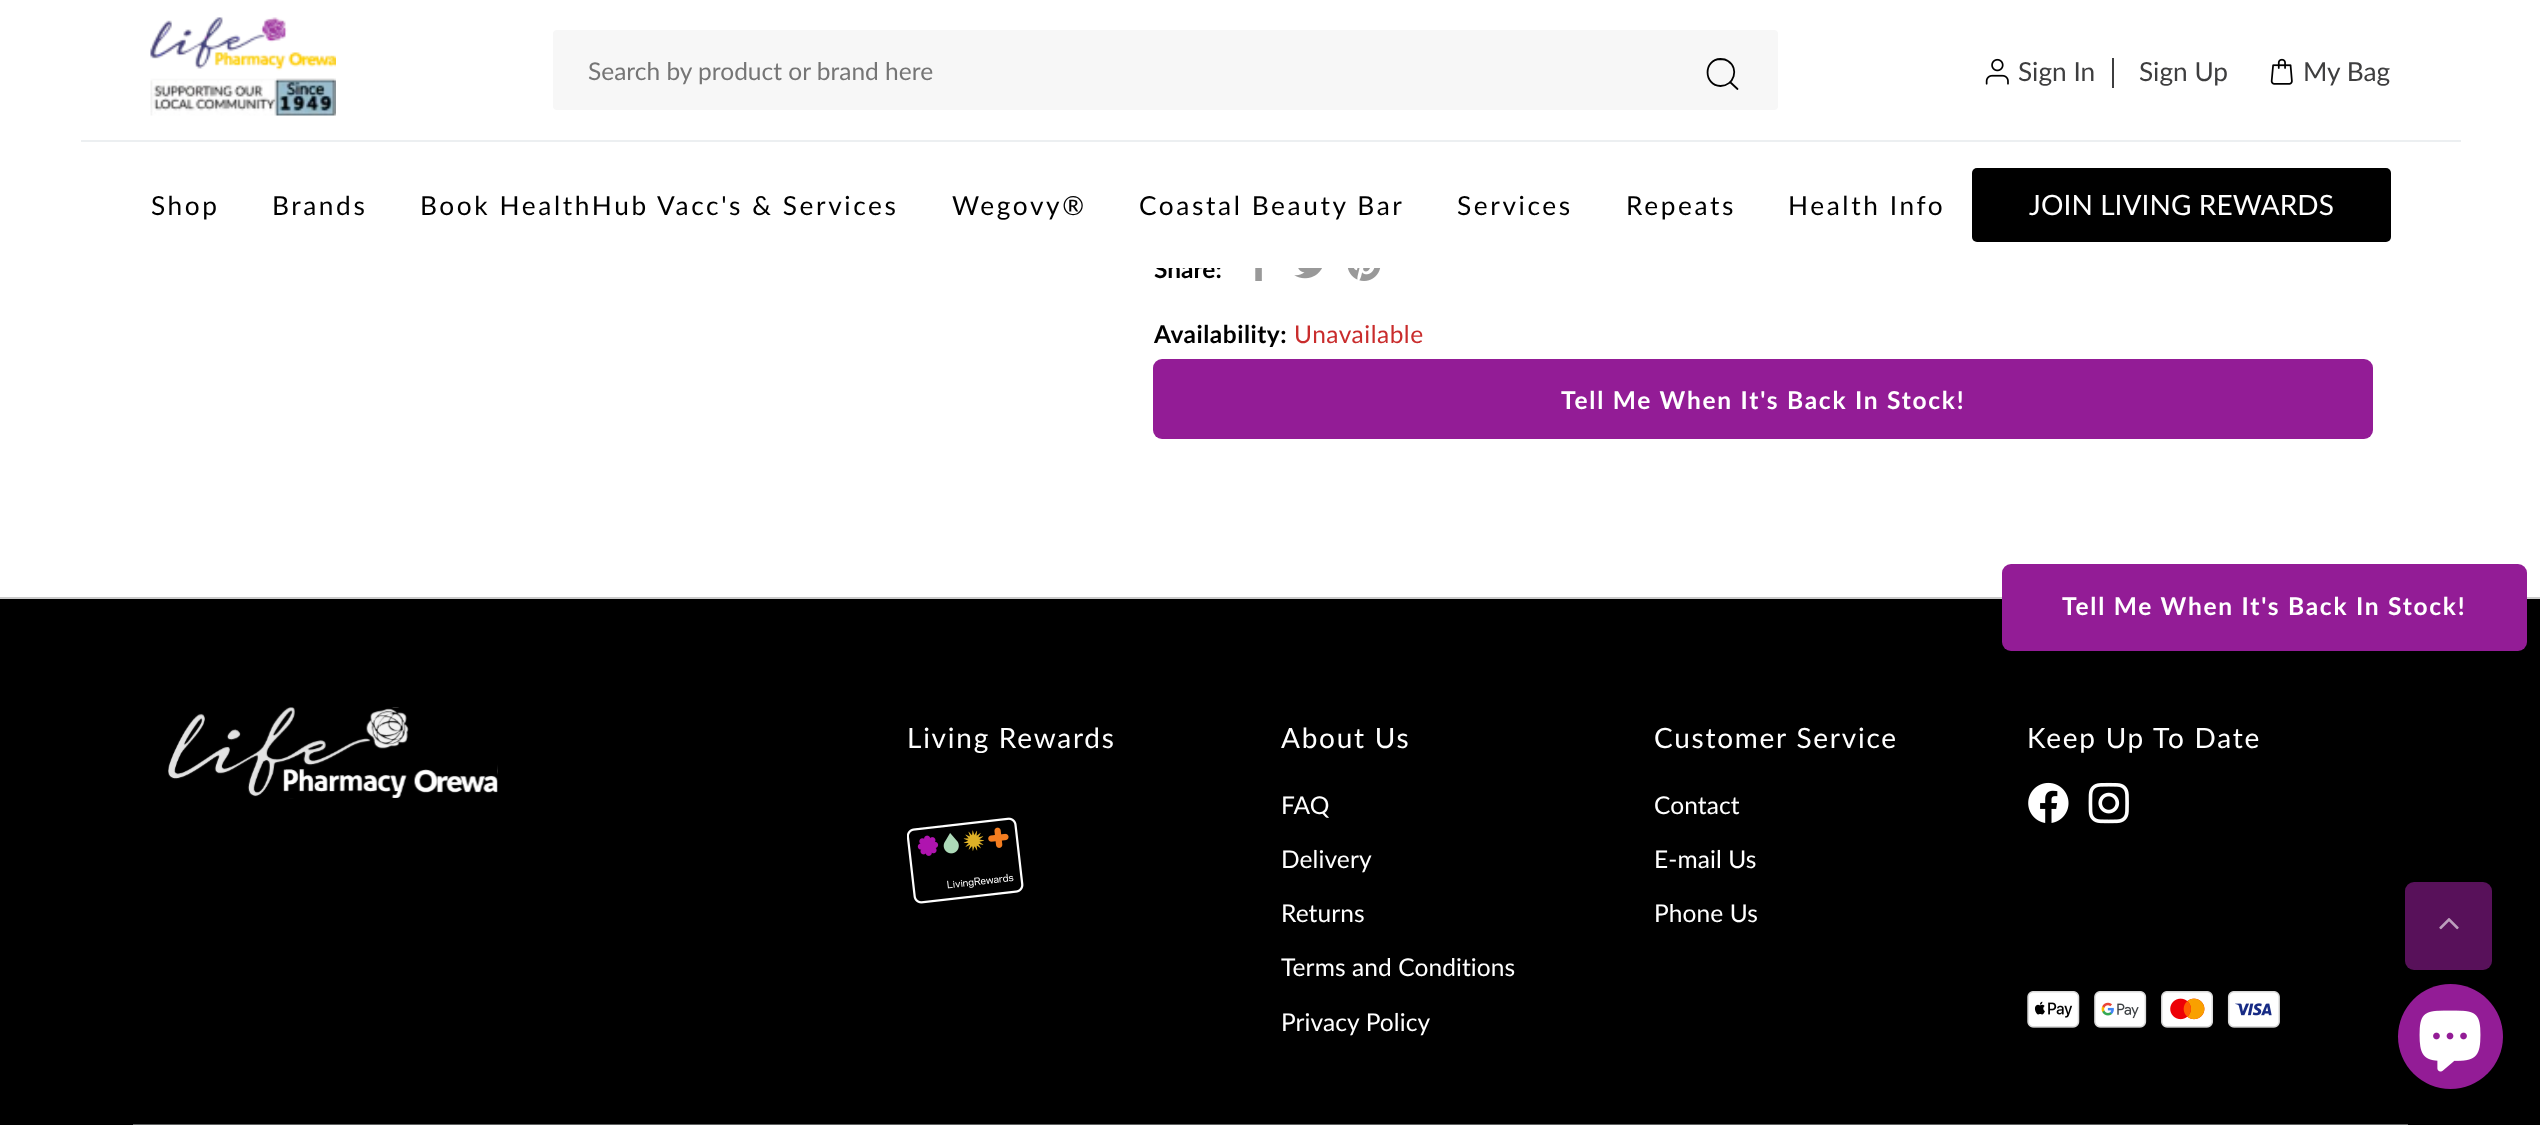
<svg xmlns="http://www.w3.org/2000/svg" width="2540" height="1125">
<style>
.a{font:24.5px Lato;fill:#757575}
.b{font:26.25px Lato;fill:#3e3e3f}
.c{font:26.25px Lato;letter-spacing:2.6px;fill:#000}
.d{font:28px Lato;letter-spacing:0.1px;fill:#fff}
.e{font:bold 24.5px Lato;fill:#000}
.f{font:bold 24.5px Lato;letter-spacing:0.5px;fill:#000}
.g{font:24.5px Lato;letter-spacing:0.5px;fill:#c92c2c}
.h{font:bold 24.5px Lato;letter-spacing:1.75px;fill:#fff}
.i{font:28px Lato;letter-spacing:1.75px;fill:#fff}
.j{font:24.5px Lato;letter-spacing:0.1px;fill:#fff}
</style>
<rect width="100%" height="100%" fill="#fff"/>
<path fill="#eceff1" d="M81 140h2380v2H81z"/>
<image href="1.png" x="150" y="17" width="186" height="99"/>
<rect fill="#f7f7f7" x="553" y="30" width="1225" height="80" rx="4"/>
<path fill="none" stroke="#000" stroke-width="1.8" stroke-linecap="round" stroke-linejoin="round" d="M1737.5 89l-7.5-7m-9.5 4c13.5 0 19-17.5 7.5-25c-2-1.5-4.5-2-7.5-2c-17.5 .5-17 26.5 0 27z"/>
<path fill="#3e3e3f" d="M2112 58h2v30H2112z"/>
<image href="2.png" x="1985" y="58" width="24" height="27"/>
<image href="3.png" x="2270" y="58" width="23" height="27"/>
<rect fill="#000" x="1972" y="168" width="419" height="74" rx="5"/>
<image href="4.png" x="1255" y="268" width="7" height="13"/>
<image href="5.png" x="1294" y="268" width="28" height="11"/>
<image href="6.png" x="1347" y="268" width="34" height="13"/>
<rect fill="#931c96" x="1153" y="359" width="1220" height="80" rx="9"/>
<path fill="#000" d="M0 599h2540v526H0z"/>
<path fill="#cbcbcb" d="M0 597h2540v2H0z"/>
<image href="7.png" x="168" y="707" width="330" height="92"/>
<image href="8.png" x="907" y="817" width="117" height="87"/>
<image href="9.png" x="2028" y="782" width="41" height="41"/>
<image href="10.png" x="2088" y="782" width="41" height="42"/>
<image href="11.png" x="2027" y="991" width="253" height="37"/>
<path fill="#5e6060" d="M133 1124h2275v1H133z"/>
<rect fill="#58115a" x="2405" y="882" width="87" height="88" rx="9"/>
<image href="12.png" x="2439" y="918" width="20" height="12"/>
<rect fill="#931c96" x="2002" y="564" width="525" height="87" rx="9"/>
<circle fill="#931c96" cx="2450.5" cy="1036.5" r="52.5"/>
<image href="13.png" x="2419" y="1010" width="62" height="62"/>
<text class="a" x="588" y="80">Search by product or brand here</text>
<text class="b" x="2018" y="81">Sign In</text>
<text class="b" x="2139" y="81">Sign Up</text>
<text class="b" x="2303" y="81">My Bag</text>
<text class="c" x="151" y="215">Shop</text>
<text class="c" x="272" y="215">Brands</text>
<text class="c" x="420" y="215">Book HealthHub Vacc's &amp; Services</text>
<text class="c" x="952" y="215">Wegovy®</text>
<text class="c" x="1139" y="215">Coastal Beauty Bar</text>
<text class="c" x="1457" y="215">Services</text>
<text class="c" x="1626" y="215">Repeats</text>
<text class="c" x="1788" y="215">Health Info</text>
<text class="d" x="2029" y="215">JOIN LIVING REWARDS</text>
<text class="e" x="1154" y="278">Share:</text>
<path fill="#fff" d="M1155 259h66v9H1155z"/>
<text class="f" x="1154" y="343">Availability:</text>
<text class="g" x="1294" y="343">Unavailable</text>
<text class="h" x="1561" y="409">Tell Me When It's Back In Stock!</text>
<text class="i" x="907" y="748">Living Rewards</text>
<text class="i" x="1281" y="748">About Us</text>
<text class="j" x="1281" y="814">FAQ</text>
<text class="j" x="1281" y="868">Delivery</text>
<text class="j" x="1281" y="922">Returns</text>
<text class="j" x="1281" y="976">Terms and Conditions</text>
<text class="j" x="1281" y="1031">Privacy Policy</text>
<text class="i" x="1654" y="748">Customer Service</text>
<text class="j" x="1654" y="814">Contact</text>
<text class="j" x="1654" y="868">E-mail Us</text>
<text class="j" x="1654" y="922">Phone Us</text>
<text class="i" x="2027" y="748">Keep Up To Date</text>
<text class="h" x="2062" y="615">Tell Me When It's Back In Stock!</text>
</svg>
